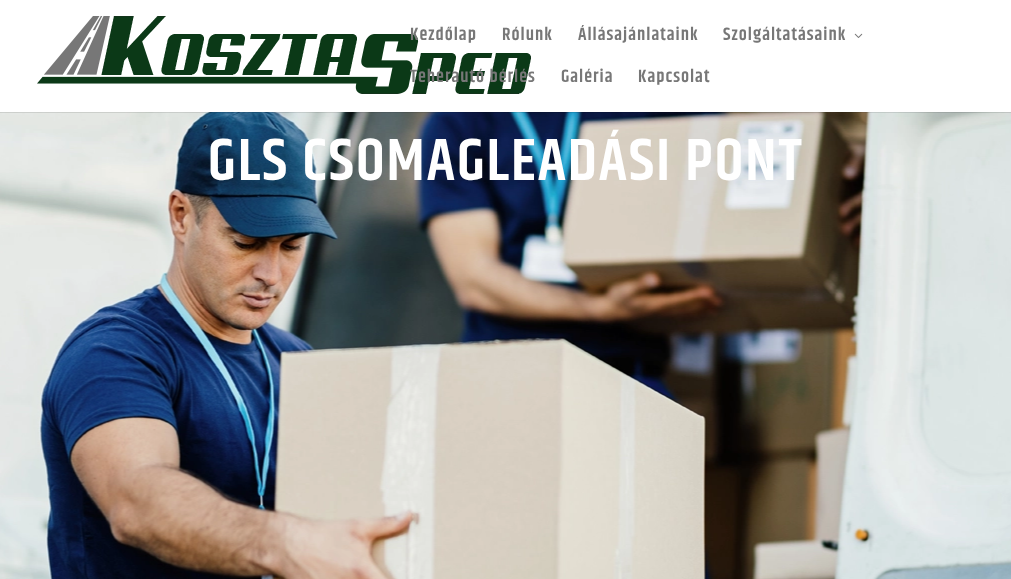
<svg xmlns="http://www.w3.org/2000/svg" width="1011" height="579">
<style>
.a{font:600 18px Khand;letter-spacing:1px;fill:#777}
.b{font:600 60px Khand;letter-spacing:2px;fill:#fff}
</style>
<rect width="100%" height="100%" fill="#fff"/>
<image href="3.png" x="0" y="112" width="1011" height="467"/>
<path fill="#0000001a" d="M0 112h1011v1H0z"/>
<image href="1.png" x="37" y="16" width="494" height="78"/>
<image href="2.png" x="854" y="33" width="9" height="5"/>
<text class="a" x="410" y="40">Kezdőlap</text>
<text class="a" x="502" y="40">Rólunk</text>
<text class="a" x="578" y="40">Állásajánlataink</text>
<text class="a" x="723" y="40">Szolgáltatásaink</text>
<text class="a" x="410" y="82">Teherautó bérlés</text>
<text class="a" x="561" y="82">Galéria</text>
<text class="a" x="638" y="82">Kapcsolat</text>
<text class="b" x="208" y="180">GLS CSOMAGLEADÁSI PONT</text>
</svg>
